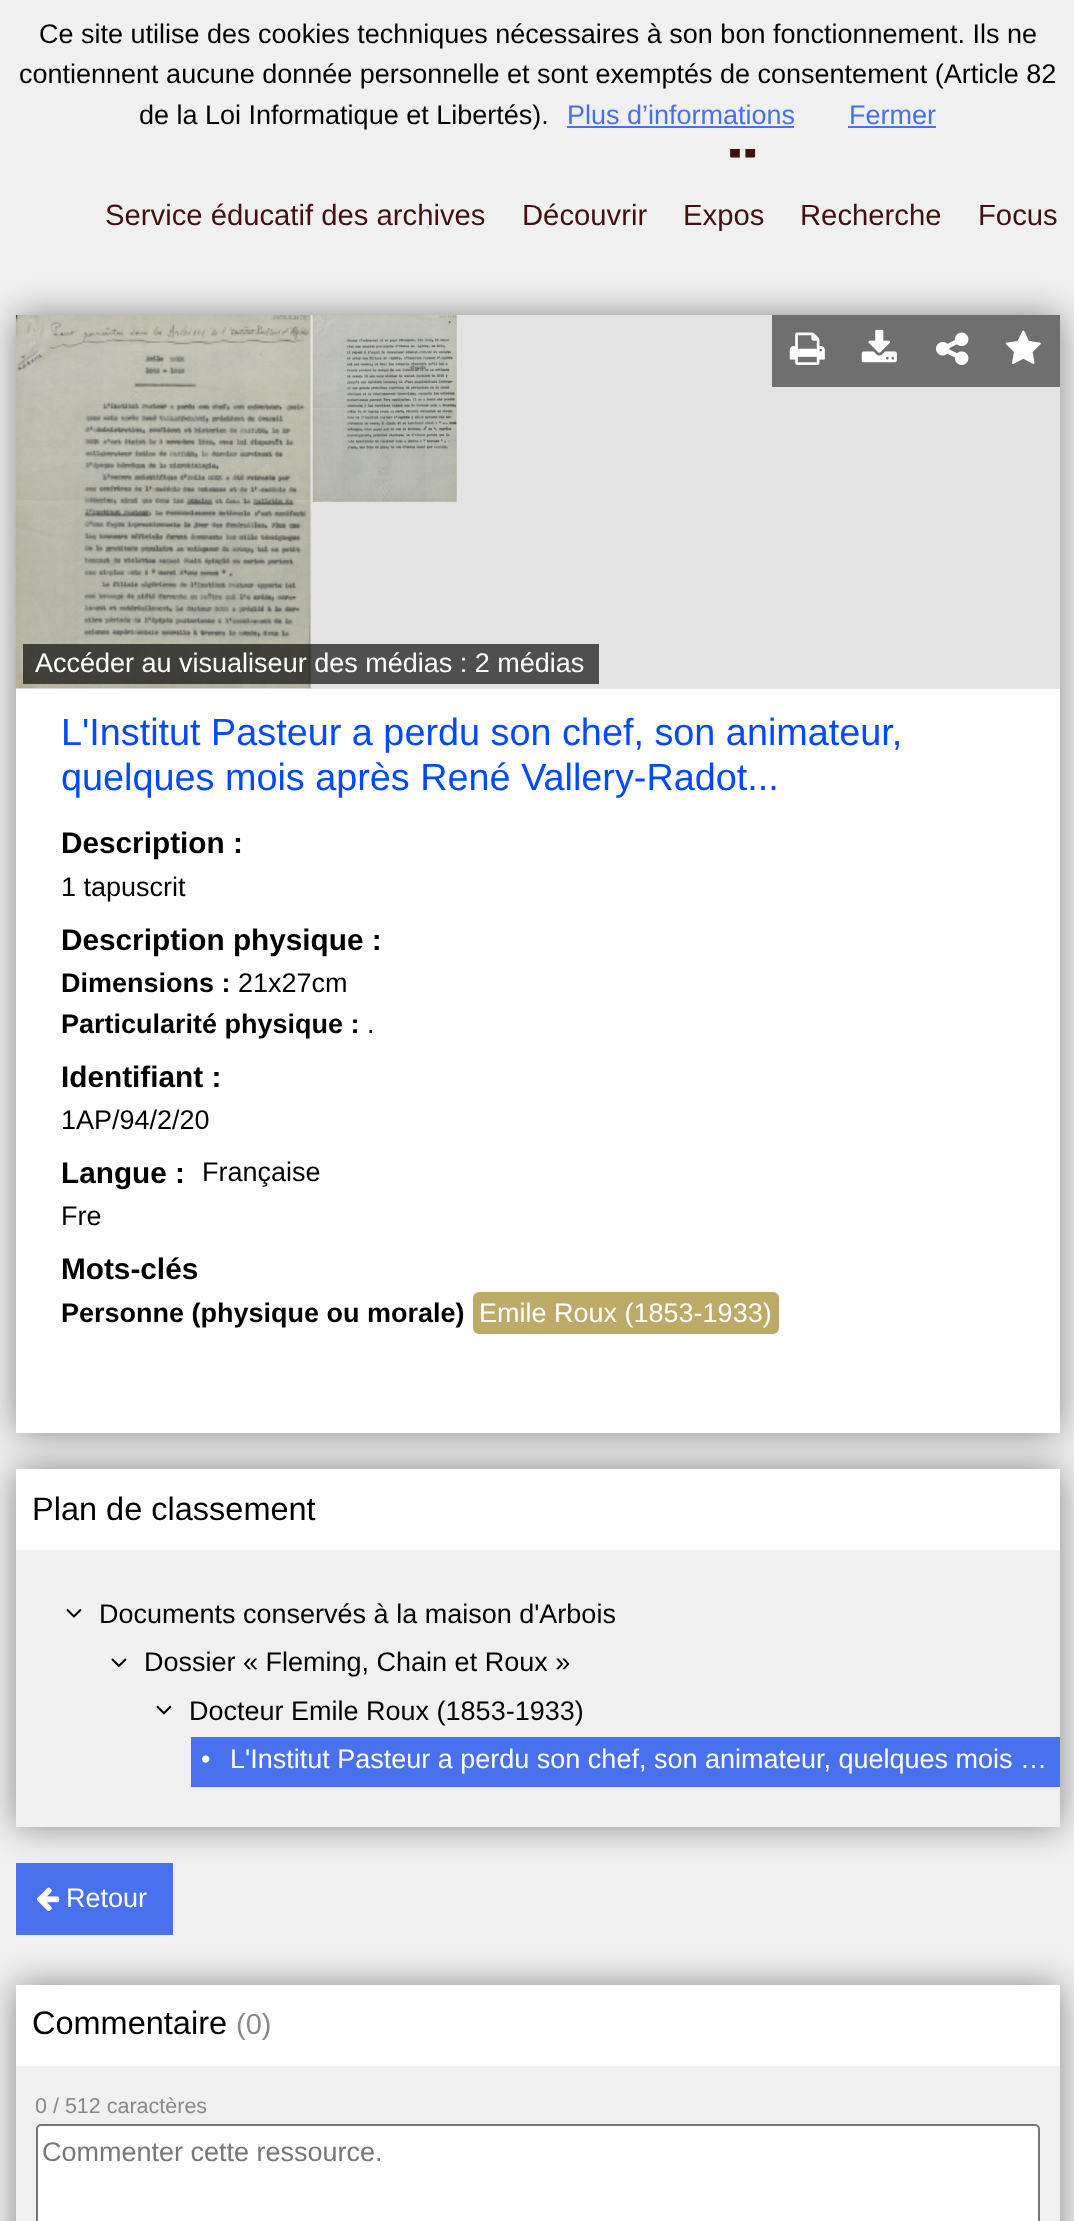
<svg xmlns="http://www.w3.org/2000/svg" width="1074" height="2221">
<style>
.a{font:27px Liberation Sans;fill:#000}
.b{font:27px Liberation Sans;fill:#4970ec}
.c{font:29.25px Liberation Sans;fill:#421010}
.d{font:27px Liberation Sans;fill:#fff}
.e{font:37.8px Liberation Sans;fill:#0049ff}
.f{font:bold 29.75px Liberation Sans;fill:#000}
.g{font:bold 27px Liberation Sans;fill:#000}
.h{font:32.5px Liberation Sans;fill:#000}
.i{font:29px Liberation Sans;fill:#888}
.j{font:21.5px Liberation Sans;fill:#888}
.k{font:27px Liberation Sans;fill:#777}
</style>
<defs>
<clipPath id="clip1"><path d="M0 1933h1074v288h-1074zm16 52h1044v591h-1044z" clip-rule="evenodd"/></clipPath>
</defs>
<rect width="100%" height="100%" fill="#f0f0f0"/>
<path fill="#4970ec" d="M567 126h227v2H567z"/>
<path fill="#4970ec" d="M848 126h88v2H848z"/>
<image href="1.png" x="730" y="149" width="26" height="9"/>
<g clip-path="url(#clip1)">
<path fill="#888" filter="blur(17px)" d="M16 1985h1044v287H16z"/>
</g>
<path fill="#4a71ed" d="M16 1863h157v72H16z"/>
<path fill="#888" filter="blur(17px)" d="M16 1469h1044v358H16z"/>
<path fill="#fff" d="M16 1469h1044v81H16z"/>
<path fill="#888" filter="blur(17px)" d="M16 315h1044v1118H16z"/>
<path fill="#fff" d="M16 689h1044v744H16z"/>
<path fill="#e3e3e3" d="M16 315h1044v374H16z"/>
<path fill="#6f6f6f" d="M772 315h144v72H772z"/>
<image href="2.png" x="789" y="332" width="36" height="33"/>
<path fill="#6f6f6f" d="M916 315h144v72H916z"/>
<image href="3.png" x="1005" y="330" width="36" height="34"/>
<image href="4.png" x="861" y="329" width="36" height="34"/>
<image href="5.png" x="936" y="332" width="33" height="33"/>
<image href="6.png" x="15" y="315" width="296" height="374"/>
<image href="7.png" x="312" y="315" width="145" height="187"/>
<path fill="#000000a6" d="M23 644h576v40H23z"/>
<rect fill="#bdaa68" x="473" y="1292" width="306" height="42" rx="6"/>
<path fill="#f0f0f0" d="M16 1550h1044v277H16z"/>
<image href="8.png" x="66" y="1609" width="16" height="9"/>
<image href="9.png" x="111" y="1658" width="16" height="10"/>
<image href="10.png" x="156" y="1705" width="16" height="10"/>
<path fill="#4a71ed" d="M191 1737h869v50H191z"/>
<image href="11.png" x="37" y="1887" width="23" height="24"/>
<path fill="#fff" d="M16 1985h1044v81H16z"/>
<rect fill="#fff" stroke="#767676" stroke-width="2" x="37" y="2125" width="1002" height="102" rx="4"/>
<text class="a" x="39" y="43">Ce site utilise des cookies techniques nécessaires à son bon fonctionnement. Ils ne</text>
<text class="a" x="19" y="83">contiennent aucune donnée personnelle et sont exemptés de consentement (Article 82</text>
<text class="a" x="139" y="124">de la Loi Informatique et Libertés).</text>
<text class="b" x="567" y="124">Plus d’informations</text>
<text class="b" x="849" y="124">Fermer</text>
<text class="c" x="105" y="225">Service éducatif des archives</text>
<text class="c" x="522" y="225">Découvrir</text>
<text class="c" x="683" y="225">Expos</text>
<text class="c" x="800" y="225">Recherche</text>
<text class="c" x="978" y="225">Focus</text>
<text class="d" x="35" y="672">Accéder au visualiseur des médias : 2 médias</text>
<text class="e" x="61" y="745">L'Institut Pasteur a perdu son chef, son animateur,</text>
<text class="e" x="61" y="790">quelques mois après René Vallery-Radot...</text>
<text class="f" x="61" y="853">Description :</text>
<text class="a" x="61" y="896">1 tapuscrit</text>
<text class="f" x="61" y="950">Description physique :</text>
<text class="g" x="61" y="992">Dimensions :</text>
<text class="a" x="238" y="992">21x27cm</text>
<text class="g" x="61" y="1033">Particularité physique :</text>
<text class="a" x="367" y="1033">.</text>
<text class="f" x="61" y="1087">Identifiant :</text>
<text class="a" x="61" y="1129">1AP/94/2/20</text>
<text class="f" x="61" y="1183">Langue :</text>
<text class="a" x="202" y="1181">Française</text>
<text class="a" x="61" y="1225">Fre</text>
<text class="f" x="61" y="1279">Mots-clés</text>
<text class="g" x="61" y="1322">Personne (physique ou morale)</text>
<text class="d" x="479" y="1322">Emile Roux (1853-1933)</text>
<text class="h" x="32" y="1520">Plan de classement</text>
<text class="a" x="99" y="1623">Documents conservés à la maison d'Arbois</text>
<text class="a" x="144" y="1671">Dossier « Fleming, Chain et Roux »</text>
<text class="a" x="189" y="1720">Docteur Emile Roux (1853-1933)</text>
<text class="d" x="201" y="1768">•</text>
<text class="d" x="230" y="1768">L'Institut Pasteur a perdu son chef, son animateur, quelques mois …</text>
<text class="d" x="66" y="1907">Retour</text>
<text class="h" x="32" y="2034">Commentaire</text>
<text class="i" x="236" y="2034">(0)</text>
<text class="j" x="35" y="2113">0 / 512 caractères</text>
<text class="k" x="42" y="2161">Commenter cette ressource.</text>
</svg>
